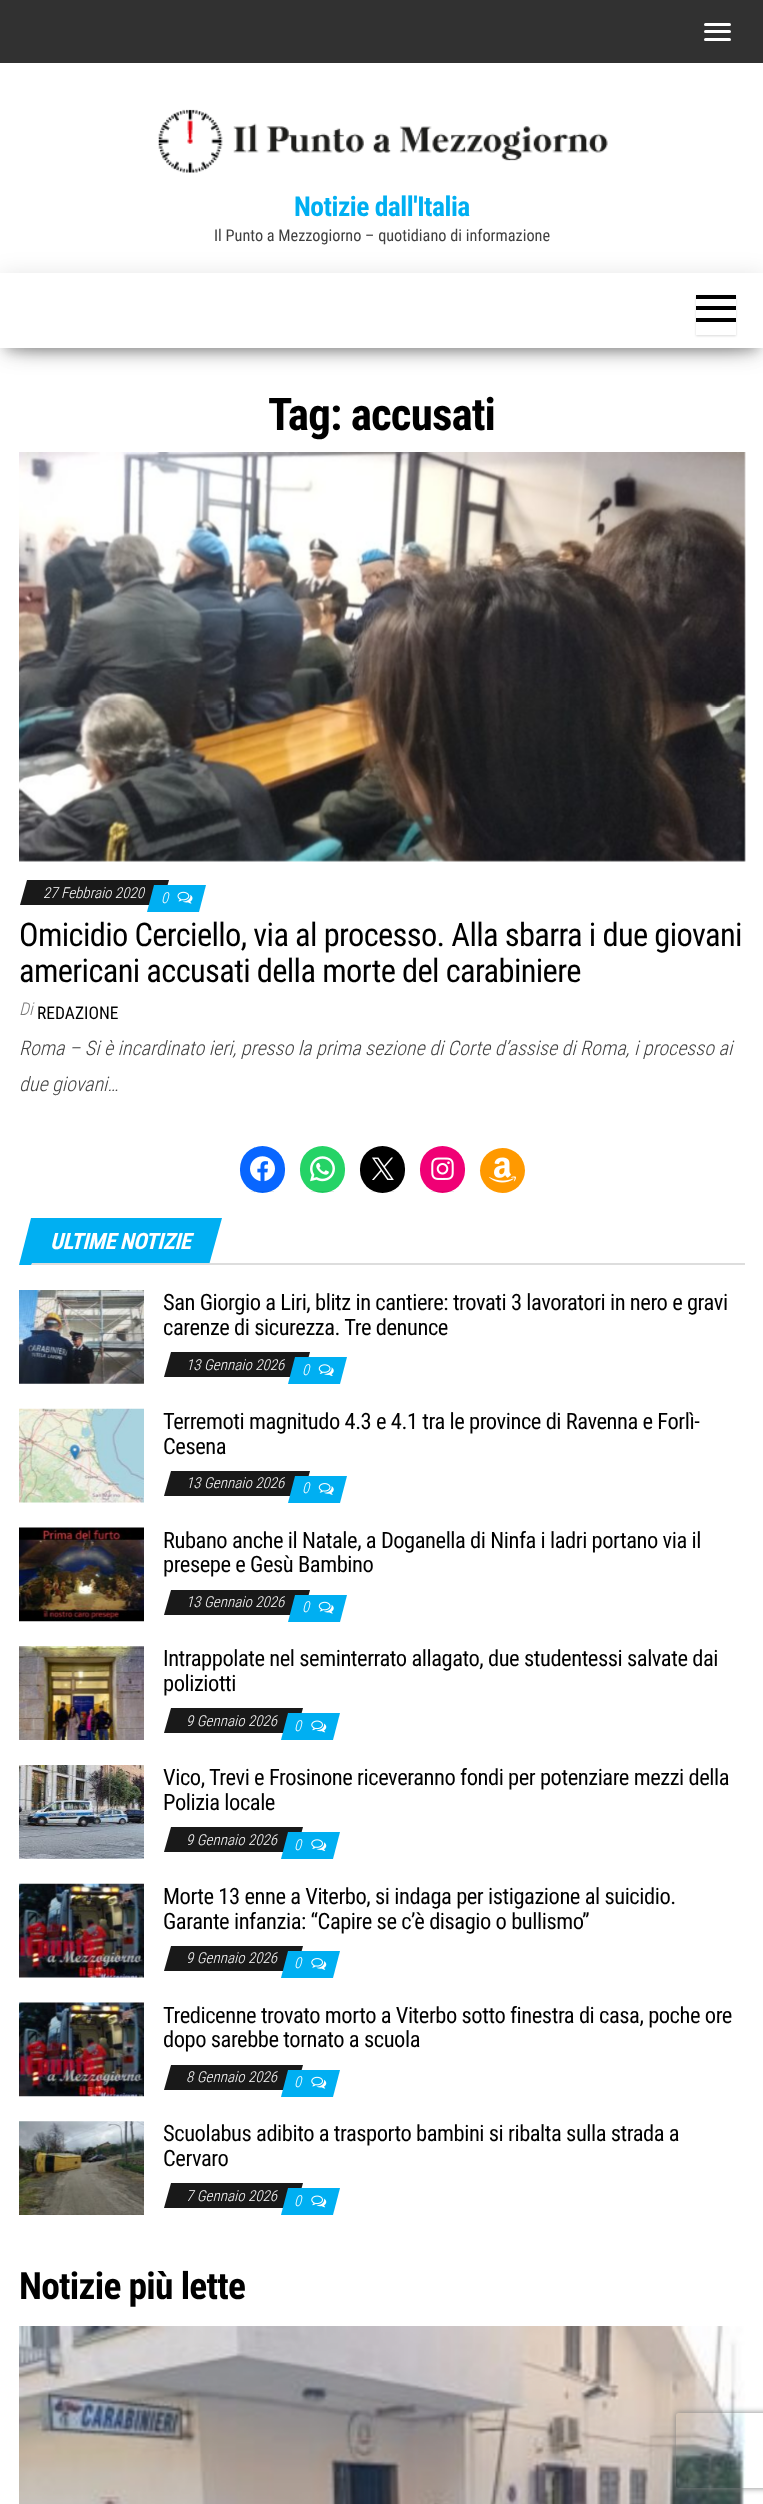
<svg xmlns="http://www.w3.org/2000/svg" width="763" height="2504">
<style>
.a{font:bold 27.5px Roboto Condensed;letter-spacing:-0.5px;fill:#00aff2}
.b{font:16.25px Roboto Condensed;fill:#404040}
.c{font:bold 45px Roboto Condensed;letter-spacing:-0.9px;fill:#000}
.d{font:italic 300 15px Roboto Condensed;fill:#fff}
.e{font:32.5px Roboto Condensed;letter-spacing:-0.65px;fill:#000}
.f{font:italic 300 17.5px Roboto Condensed;fill:#797979}
.g{font:17.5px Roboto Condensed;fill:#000}
.h{font:italic 300 20px Roboto Condensed;fill:#404040}
.i{font:italic bold 22.5px Roboto Condensed;letter-spacing:-0.45px;fill:#fff}
.j{font:22.5px Roboto Condensed;letter-spacing:-0.45px;fill:#000}
.k{font:bold 37.5px Roboto Condensed;letter-spacing:-0.75px;fill:#000}
</style>
<defs>
<clipPath id="clip1"><path d="M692 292h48v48h-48zm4 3h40v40h-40z" clip-rule="evenodd"/></clipPath>
<clipPath id="clip2"><path d="M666 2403h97v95h-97zm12.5 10h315c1.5 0 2.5 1 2.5 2.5v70c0 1.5-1 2.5-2.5 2.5h-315c-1.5 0-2.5-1-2.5-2.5v-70c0-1.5 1-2.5 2.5-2.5z" clip-rule="evenodd"/></clipPath>
</defs>
<rect width="100%" height="100%" fill="#fff"/>
<path fill="#313131" d="M0 0h763v63H0z"/>
<rect fill="#fff" x="704" y="23" width="27" height="3" rx="1.5"/>
<rect fill="#fff" x="704" y="30" width="27" height="3" rx="1.5"/>
<rect fill="#fff" x="704" y="38" width="27" height="3" rx="1.5"/>
<image href="1.png" x="158" y="109" width="450" height="64"/>
<path fill="#00000033" filter="blur(6px)" d="M6 289h752v62H6z"/>
<path fill="#0000001f" filter="blur(12.5px)" d="M0 276h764v75H0z"/>
<path fill="#0000006b" filter="blur(12.5px)" d="M15 300h734v45H15z"/>
<path fill="#fff" d="M0 273h763v75H0z"/>
<g clip-path="url(#clip1)">
<path fill="#00000026" filter="blur(1px)" d="M696 296h40v40H696z"/>
</g>
<path fill="#000" d="M696 295h40v4H696z"/>
<path fill="#000" d="M696 306h40v4H696z"/>
<path fill="#000" d="M696 318h40v4H696z"/>
<image href="2.png" x="19" y="452" width="727" height="410"/>
<path fill="#191919" d="M27 880h142l-7 25h-142z"/>
<path fill="#00aff2" d="M154 885h52l-7 27h-52z"/>
<image href="3.png" x="177" y="891" width="16" height="13"/>
<rect fill="#0866ff" x="240" y="1146" width="45" height="47" rx="22.5"/>
<path fill="#00000014" d="M251 1191h23v1H251z"/>
<image href="4.png" x="250" y="1156" width="25" height="26"/>
<rect fill="#25d366" x="300" y="1146" width="45" height="47" rx="22.5"/>
<path fill="#00000014" d="M311 1191h23v1H311z"/>
<image href="5.png" x="310" y="1156" width="25" height="26"/>
<rect fill="#000" x="360" y="1146" width="45" height="47" rx="22.5"/>
<path fill="#00000014" d="M371 1191h23v1H371z"/>
<image href="6.png" x="372" y="1157" width="22" height="23"/>
<rect fill="#f00075" x="420" y="1146" width="45" height="47" rx="22.5"/>
<path fill="#00000014" d="M431 1191h23v1H431z"/>
<image href="7.png" x="431" y="1157" width="23" height="23"/>
<circle fill="#f90" cx="502.5" cy="1170.5" r="22.5"/>
<image href="8.png" x="489" y="1157" width="27" height="26"/>
<path fill="#00aff2" d="M31 1218h191l-13 47h-190z"/>
<path fill="#ddd" d="M32 1263h713v2h-714z"/>
<image href="9.png" x="19" y="1290" width="125" height="94"/>
<path fill="#191919" d="M171 1352h139l-7 25h-139z"/>
<path fill="#00aff2" d="M295 1357h52l-7 27h-52z"/>
<image href="10.png" x="318" y="1364" width="16" height="12"/>
<image href="11.png" x="19" y="1408" width="125" height="95"/>
<path fill="#191919" d="M171 1471h139l-7 25h-139z"/>
<path fill="#00aff2" d="M295 1476h52l-7 27h-52z"/>
<image href="12.png" x="318" y="1483" width="16" height="12"/>
<image href="13.png" x="19" y="1527" width="125" height="95"/>
<path fill="#191919" d="M171 1590h139l-7 25h-139z"/>
<path fill="#00aff2" d="M295 1595h52l-7 27h-52z"/>
<image href="14.png" x="318" y="1601" width="16" height="13"/>
<image href="15.png" x="19" y="1646" width="125" height="94"/>
<path fill="#191919" d="M171 1708h132l-7 25h-132z"/>
<path fill="#00aff2" d="M288 1713h52l-7 27h-52z"/>
<image href="16.png" x="311" y="1720" width="16" height="13"/>
<image href="17.png" x="19" y="1765" width="125" height="94"/>
<path fill="#191919" d="M171 1827h132l-7 25h-132z"/>
<path fill="#00aff2" d="M288 1832h52l-7 27h-52z"/>
<image href="18.png" x="311" y="1839" width="16" height="12"/>
<image href="19.png" x="19" y="1883" width="125" height="95"/>
<path fill="#191919" d="M171 1946h132l-7 25h-132z"/>
<path fill="#00aff2" d="M288 1951h52l-7 27h-52z"/>
<image href="20.png" x="311" y="1958" width="16" height="12"/>
<image href="21.png" x="19" y="2002" width="125" height="95"/>
<path fill="#191919" d="M171 2065h132l-7 25h-132z"/>
<path fill="#00aff2" d="M288 2070h52l-7 27h-52z"/>
<image href="22.png" x="311" y="2076" width="16" height="13"/>
<image href="23.png" x="19" y="2121" width="125" height="94"/>
<path fill="#191919" d="M171 2183h132l-7 25h-132z"/>
<path fill="#00aff2" d="M288 2188h52l-7 27h-52z"/>
<image href="16.png" x="311" y="2195" width="16" height="13"/>
<image href="24.png" x="19" y="2326" width="727" height="178"/>
<g clip-path="url(#clip2)">
<rect fill="#808080" filter="blur(3px)" x="676" y="2413" width="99" height="75" rx="2.5"/>
</g>
<text class="a" x="294" y="216">Notizie dall'Italia</text>
<text class="b" x="214" y="241">Il Punto a Mezzogiorno – quotidiano di informazione</text>
<text class="c" x="268" y="430">Tag: accusati</text>
<text class="d" x="43" y="898">27 Febbraio 2020</text>
<text class="d" x="161" y="903">0</text>
<text class="e" x="19" y="946">Omicidio Cerciello, via al processo. Alla sbarra i due giovani</text>
<text class="e" x="19" y="982">americani accusati della morte del carabiniere</text>
<text class="f" x="19" y="1015">Di</text>
<text class="g" x="37" y="1019">REDAZIONE</text>
<text class="h" x="19" y="1055">Roma – Si è incardinato ieri, presso la prima sezione di Corte d’assise di Roma, i processo ai</text>
<text class="h" x="19" y="1091">due giovani…</text>
<text class="i" x="50" y="1249">ULTIME NOTIZIE</text>
<text class="j" x="163" y="1310">San Giorgio a Liri, blitz in cantiere: trovati 3 lavoratori in nero e gravi</text>
<text class="j" x="163" y="1335">carenze di sicurezza. Tre denunce</text>
<text class="d" x="186" y="1370">13 Gennaio 2026</text>
<text class="d" x="302" y="1375">0</text>
<text class="j" x="163" y="1429">Terremoti magnitudo 4.3 e 4.1 tra le province di Ravenna e Forlì-</text>
<text class="j" x="163" y="1454">Cesena</text>
<text class="d" x="186" y="1488">13 Gennaio 2026</text>
<text class="d" x="302" y="1493">0</text>
<text class="j" x="163" y="1548">Rubano anche il Natale, a Doganella di Ninfa i ladri portano via il</text>
<text class="j" x="163" y="1572">presepe e Gesù Bambino</text>
<text class="d" x="186" y="1607">13 Gennaio 2026</text>
<text class="d" x="302" y="1612">0</text>
<text class="j" x="163" y="1666">Intrappolate nel seminterrato allagato, due studentessi salvate dai</text>
<text class="j" x="163" y="1691">poliziotti</text>
<text class="d" x="186" y="1726">9 Gennaio 2026</text>
<text class="d" x="294" y="1731">0</text>
<text class="j" x="163" y="1785">Vico, Trevi e Frosinone riceveranno fondi per potenziare mezzi della</text>
<text class="j" x="163" y="1810">Polizia locale</text>
<text class="d" x="186" y="1845">9 Gennaio 2026</text>
<text class="d" x="294" y="1850">0</text>
<text class="j" x="163" y="1904">Morte 13 enne a Viterbo, si indaga per istigazione al suicidio.</text>
<text class="j" x="163" y="1929">Garante infanzia: “Capire se c’è disagio o bullismo”</text>
<text class="d" x="186" y="1963">9 Gennaio 2026</text>
<text class="d" x="294" y="1968">0</text>
<text class="j" x="163" y="2023">Tredicenne trovato morto a Viterbo sotto finestra di casa, poche ore</text>
<text class="j" x="163" y="2047">dopo sarebbe tornato a scuola</text>
<text class="d" x="186" y="2082">8 Gennaio 2026</text>
<text class="d" x="294" y="2087">0</text>
<text class="j" x="163" y="2141">Scuolabus adibito a trasporto bambini si ribalta sulla strada a</text>
<text class="j" x="163" y="2166">Cervaro</text>
<text class="d" x="186" y="2201">7 Gennaio 2026</text>
<text class="d" x="294" y="2206">0</text>
<text class="k" x="19" y="2299">Notizie più lette</text>
</svg>
